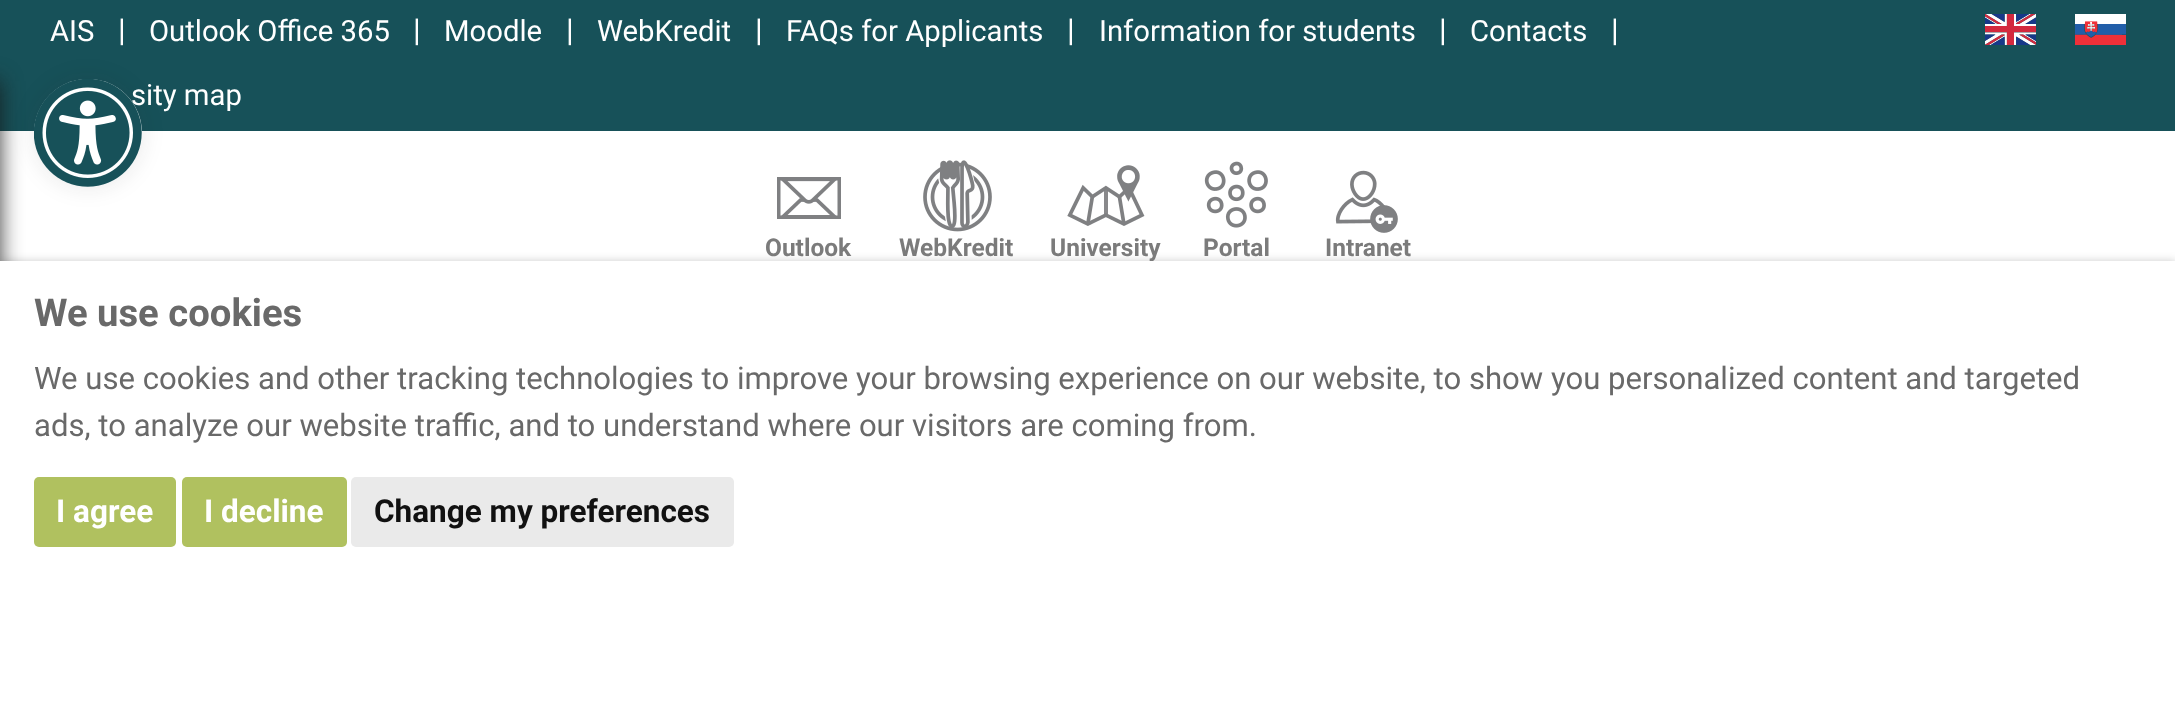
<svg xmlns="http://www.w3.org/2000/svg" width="2175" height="711">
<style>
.a{font:29.25px Roboto;fill:#fff}
.b{font:31.5px Roboto;fill:#fff}
.c{font:bold 24.5px Roboto;fill:#7b7b7b}
.d{font:bold 38.25px Roboto;fill:#696969}
.e{font:31.1px Roboto;fill:#696969}
.f{font:bold 31.5px Roboto;fill:#fff}
.g{font:bold 31.5px Roboto;fill:#111}
</style>
<rect width="100%" height="100%" fill="#fff"/>
<path fill="#175159" d="M0 0h2175v131H0z"/>
<image href="1.png" x="1985" y="14" width="51" height="31"/>
<image href="2.png" x="2075" y="14" width="51" height="31"/>
<image href="3.png" x="777" y="177" width="64" height="42"/>
<image href="4.png" x="923" y="160" width="69" height="72"/>
<image href="5.png" x="1067" y="165" width="78" height="61"/>
<image href="6.png" x="1204" y="161" width="64" height="67"/>
<image href="7.png" x="1335" y="170" width="63" height="63"/>
<rect fill="#1717171a" filter="blur(11px)" x="34" y="79" width="108" height="108" rx="54"/>
<circle fill="#fff" cx="88" cy="133" r="54"/>
<path fill="#171717d6" filter="blur(11px)" d="M-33 81h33v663H-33z"/>
<path fill="#00000033" filter="blur(4.5px)" d="M0 261h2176v450H0z"/>
<text class="a" x="50" y="41">AIS</text>
<text class="b" x="118" y="41">|</text>
<text class="a" x="149" y="41">Outlook Office 365</text>
<text class="b" x="413" y="41">|</text>
<text class="a" x="444" y="41">Moodle</text>
<text class="b" x="566" y="41">|</text>
<text class="a" x="597" y="41">WebKredit</text>
<text class="b" x="755" y="41">|</text>
<text class="a" x="786" y="41">FAQs for Applicants</text>
<text class="b" x="1067" y="41">|</text>
<text class="a" x="1099" y="41">Information for students</text>
<text class="b" x="1439" y="41">|</text>
<text class="a" x="1470" y="41">Contacts</text>
<text class="b" x="1611" y="41">|</text>
<text class="a" x="131" y="105">sity map</text>
<text class="c" x="765" y="256">Outlook</text>
<text class="c" x="899" y="256">WebKredit</text>
<text class="c" x="1050" y="256">University</text>
<text class="c" x="1203" y="256">Portal</text>
<text class="c" x="1325" y="256">Intranet</text>
<image href="8.png" x="34" y="79" width="108" height="108"/>
<path fill="#fff" d="M0 261h2175v450H0z"/>
<text class="d" x="34" y="326">We use cookies</text>
<text class="e" x="34" y="389">We use cookies and other tracking technologies to improve your browsing experience on our website, to show you personalized content and targeted</text>
<text class="e" x="34" y="436">ads, to analyze our website traffic, and to understand where our visitors are coming from.</text>
<rect fill="#b0c15f" x="34" y="477" width="142" height="70" rx="5"/>
<text class="f" x="56" y="522">I agree</text>
<rect fill="#b0c15f" x="182" y="477" width="165" height="70" rx="5"/>
<text class="f" x="204" y="522">I decline</text>
<rect fill="#eaeaea" x="351" y="477" width="383" height="70" rx="5"/>
<text class="g" x="374" y="522">Change my preferences</text>
</svg>
